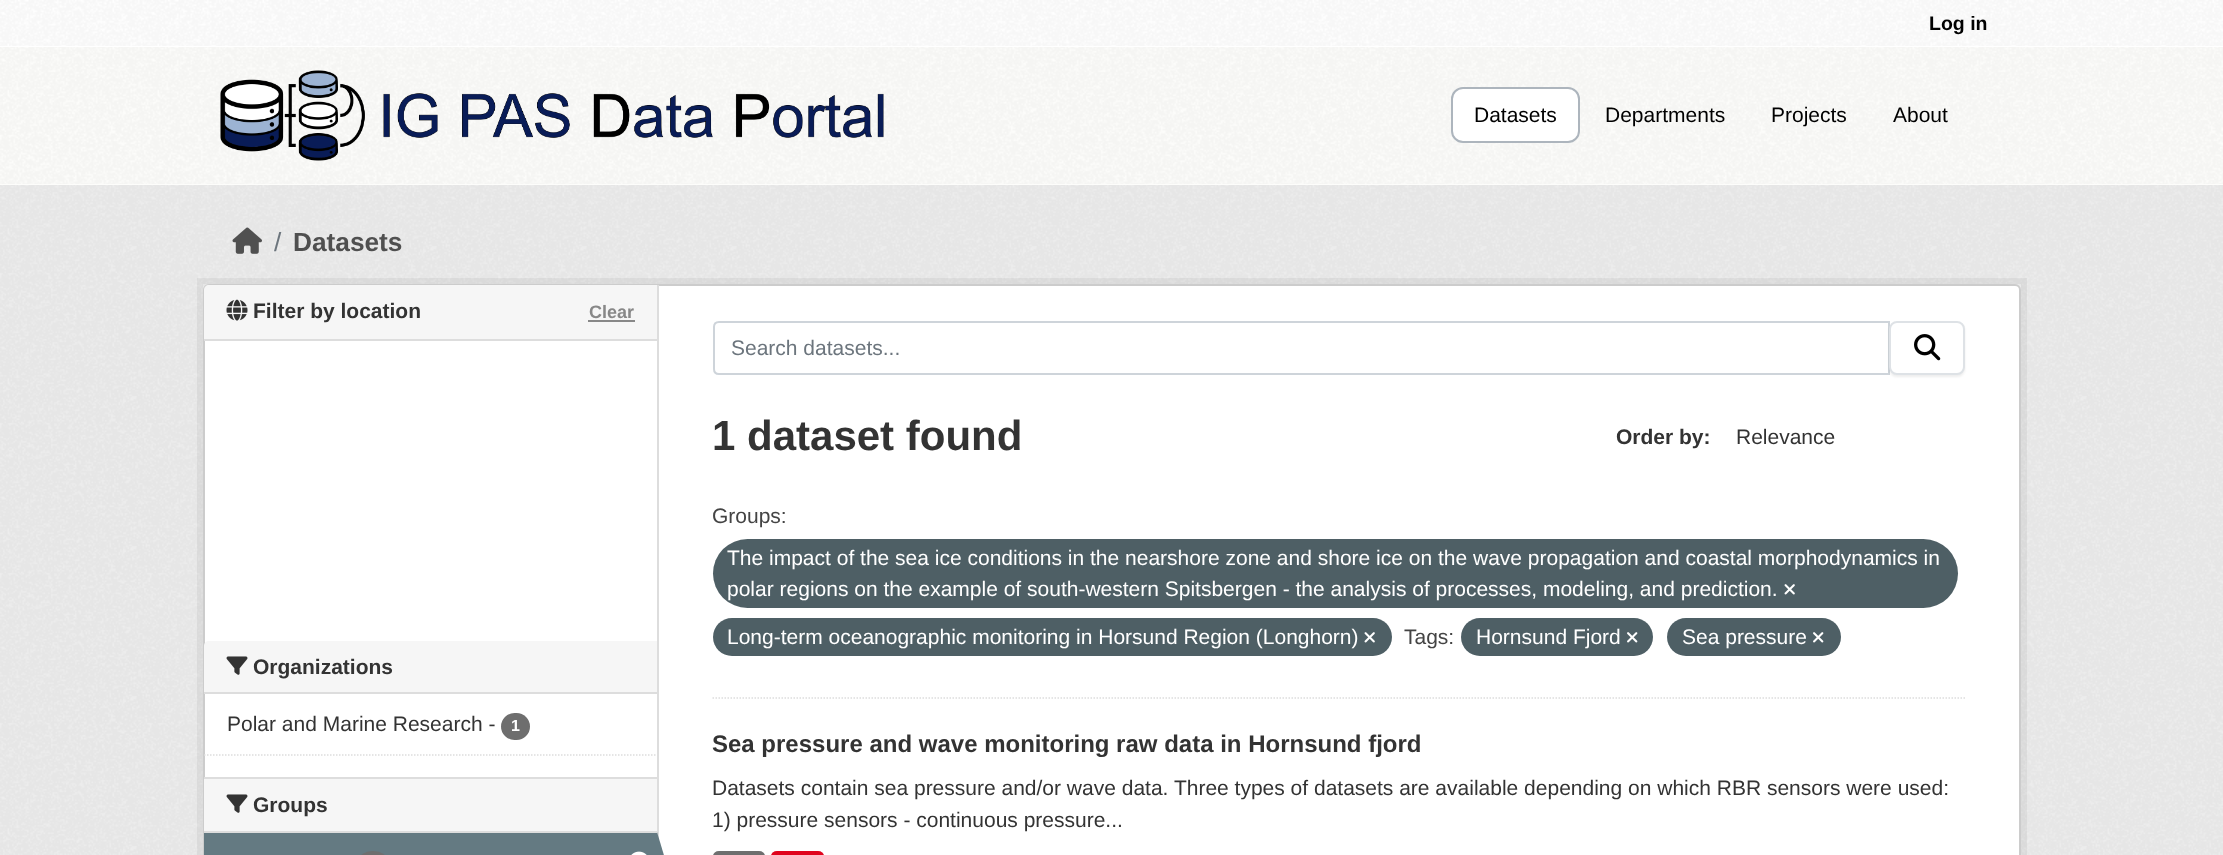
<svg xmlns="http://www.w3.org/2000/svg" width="2223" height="855">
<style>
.a{font:bold 19.5px Liberation Sans;fill:#000}
.b{font:21px Liberation Sans;fill:#000}
.c{font:26.25px Liberation Sans;fill:#6c757d}
.d{font:bold 26.25px Liberation Sans;fill:#505050}
.e{font:bold 21px Liberation Sans;fill:#333}
.f{font:bold 18px Liberation Sans;fill:#888}
.g{font:21px Liberation Sans;fill:#333}
.h{font:bold 16px Liberation Sans;fill:#fff}
.i{font:21px Liberation Sans;fill:#6c757d}
.j{font:bold 42px Liberation Sans;fill:#333}
.k{font:21px Liberation Sans;fill:#444}
.l{font:21px Liberation Sans;fill:#fff}
.m{font:bold 24px Liberation Sans;fill:#333}
</style>
<rect width="100%" height="100%" fill="#fff"/>
<image href="1.png" x="0" y="0" width="2223" height="46"/>
<path fill="#fdfdfb" d="M0 47h2223v138H0z"/>
<image href="2.png" x="0" y="47" width="2223" height="137"/>
<image href="3.png" x="220" y="70" width="664" height="91"/>
<rect fill="#fff" stroke="#adb5bd" stroke-width="2" x="1452" y="88" width="127" height="54" rx="11"/>
<path fill="#eee" d="M0 185h2223v670H0z"/>
<image href="4.png" x="0" y="185" width="2223" height="670"/>
<image href="5.png" x="232" y="227" width="30" height="27"/>
<path fill="none" stroke="#0000000d" stroke-width="6" d="M200 281h1824v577H200z"/>
<rect fill="#fff" stroke="#ccc" stroke-width="2" x="204" y="285" width="1816" height="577" rx="5"/>
<path fill="#f6f6f6" d="M209 285h448v56h-453v-51c0-3 2-5 5-5z"/>
<path fill="#ddd" d="M204 339h453v2H204z"/>
<image href="6.png" x="226" y="299" width="22" height="22"/>
<path fill="#888" d="M588 320h47v2H588z"/>
<path fill="#f6f6f6" d="M209 641h448v52h-453v-47c0-3 2-5 5-5z"/>
<path fill="#ddd" d="M204 692h453v2H204z"/>
<image href="7.png" x="226" y="656" width="22" height="19"/>
<rect fill="#6e6e6e" x="501" y="713" width="29" height="27" rx="13.5"/>
<path fill="none" stroke="#ddd" stroke-width="1.5" stroke-dasharray="1.5 1.5" d="M204 755h453"/>
<path fill="#f6f6f6" d="M204 779h453v52H204z"/>
<path fill="#ddd" d="M204 777h453v2H204z"/>
<path fill="#ddd" d="M204 831h453v2H204z"/>
<image href="7.png" x="226" y="794" width="22" height="19"/>
<path fill="#647a82" d="M204 833h453v22H204z"/>
<path fill="#ddd" d="M657 285h2v554H657z"/>
<path fill="#647a82" d="M657 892v-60l9 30z"/>
<rect fill="#6e6e6e" x="359" y="851" width="28" height="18" rx="13.5"/>
<image href="8.png" x="631" y="851" width="16" height="4"/>
<path fill="none" stroke="#ddd" stroke-width="1.5" stroke-dasharray="1.5 1.5" d="M712.5 698h1252.5"/>
<path fill="none" stroke="#ced4da" stroke-width="2" d="M719 322h1170v52h-1170c-3 0-5-2-5-5v-42c0-3 2-5 5-5z"/>
<rect fill="#00000012" filter="blur(1px)" x="1889" y="323" width="76" height="54" rx="8"/>
<rect fill="#fff" stroke="#dee2e6" stroke-width="2" x="1890" y="322" width="74" height="52" rx="7"/>
<image href="9.png" x="1914" y="334" width="27" height="27"/>
<rect fill="#4e5f65" x="713" y="539" width="1245" height="69" rx="34.5"/>
<image href="10.png" x="1784" y="584" width="11" height="11"/>
<rect fill="#4e5f65" x="713" y="618" width="679" height="38" rx="19"/>
<image href="10.png" x="1364" y="632" width="11" height="11"/>
<rect fill="#4e5f65" x="1461" y="618" width="192" height="38" rx="19"/>
<image href="11.png" x="1627" y="632" width="11" height="11"/>
<rect fill="#4e5f65" x="1667" y="618" width="174" height="38" rx="19"/>
<image href="11.png" x="1813" y="632" width="11" height="11"/>
<rect fill="#6e6e6e" x="713" y="851" width="52" height="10" rx="6"/>
<rect fill="#e0051e" x="771" y="851" width="53" height="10" rx="6"/>
<text class="a" x="1929" y="30">Log in</text>
<text class="b" x="1474" y="122">Datasets</text>
<text class="b" x="1605" y="122">Departments</text>
<text class="b" x="1771" y="122">Projects</text>
<text class="b" x="1893" y="122">About</text>
<text class="c" x="274" y="251">/</text>
<text class="d" x="293" y="251">Datasets</text>
<text class="e" x="253" y="318">Filter by location</text>
<text class="f" x="589" y="318">Clear</text>
<text class="e" x="253" y="674">Organizations</text>
<text class="g" x="227" y="731">Polar and Marine Research -</text>
<text class="h" x="511" y="731">1</text>
<text class="e" x="253" y="812">Groups</text>
<text class="i" x="731" y="355">Search datasets...</text>
<text class="j" x="712" y="450">1 dataset found</text>
<text class="e" x="1616" y="444">Order by:</text>
<text class="g" x="1736" y="444">Relevance</text>
<text class="k" x="712" y="523">Groups:</text>
<text class="l" x="727" y="565">The impact of the sea ice conditions in the nearshore zone and shore ice on the wave propagation and coastal morphodynamics in</text>
<text class="l" x="727" y="596">polar regions on the example of south-western Spitsbergen - the analysis of processes, modeling, and prediction.</text>
<text class="l" x="727" y="644">Long-term oceanographic monitoring in Horsund Region (Longhorn)</text>
<text class="k" x="1404" y="644">Tags:</text>
<text class="l" x="1476" y="644">Hornsund Fjord</text>
<text class="l" x="1682" y="644">Sea pressure</text>
<text class="m" x="712" y="752">Sea pressure and wave monitoring raw data in Hornsund fjord</text>
<text class="g" x="712" y="795">Datasets contain sea pressure and/or wave data. Three types of datasets are available depending on which RBR sensors were used:</text>
<text class="g" x="712" y="827">1) pressure sensors - continuous pressure...</text>
</svg>
